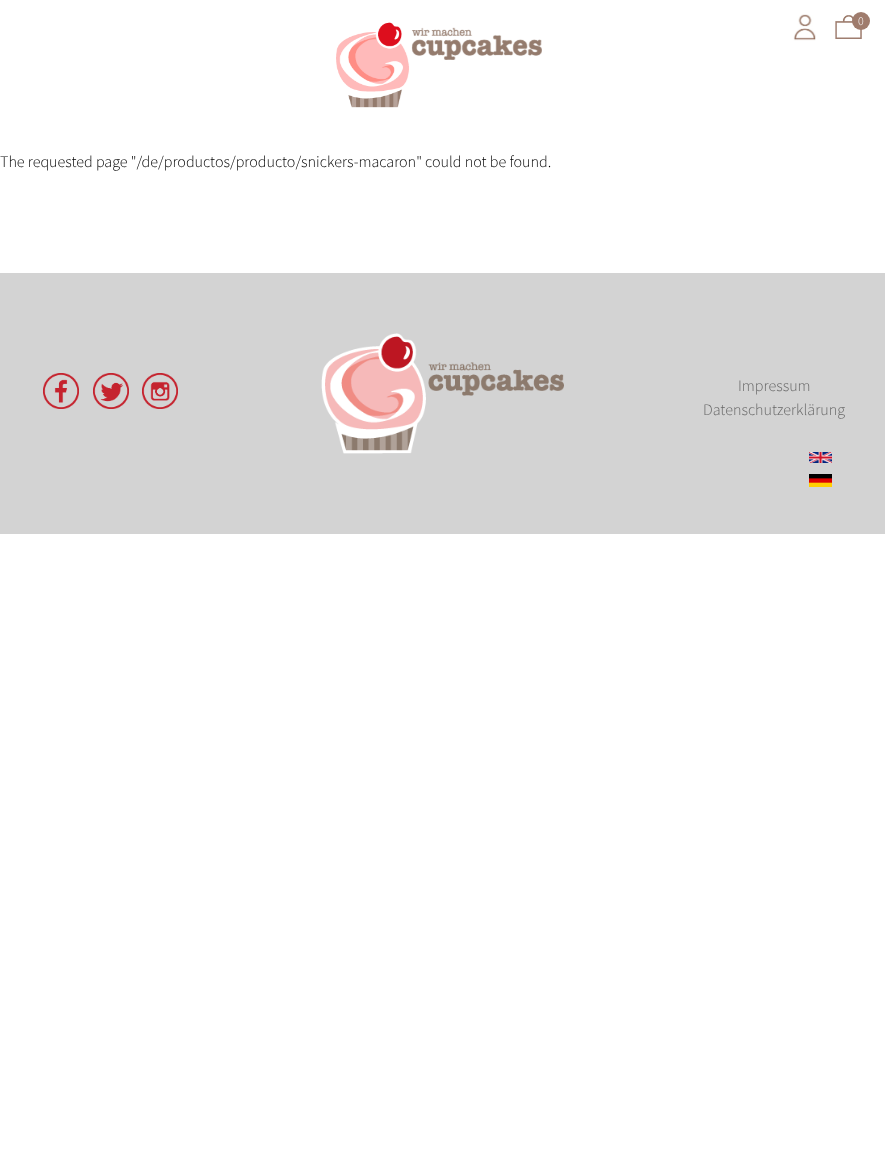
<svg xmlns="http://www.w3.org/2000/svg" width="885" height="1159">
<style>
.a{font:300 12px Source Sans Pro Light;fill:#fff}
.b{font:300 16px Source Sans Pro Light;fill:#000}
.c{font:300 16px Source Sans Pro Light;fill:#666}
</style>
<rect width="100%" height="100%" fill="#fff"/>
<image href="1.png" x="336" y="22" width="206" height="86"/>
<image href="2.png" x="793" y="14" width="23" height="27"/>
<image href="3.png" x="835" y="15" width="27" height="24"/>
<circle fill="#9f7c6d" cx="861" cy="21" r="9"/>
<path fill="#d3d3d3" d="M0 273h885v261H0z"/>
<image href="4.png" x="43" y="373" width="36" height="36"/>
<image href="5.png" x="93" y="373" width="36" height="36"/>
<image href="6.png" x="142" y="373" width="36" height="36"/>
<image href="7.png" x="321" y="333" width="243" height="121"/>
<image href="8.png" x="809" y="452" width="23" height="11"/>
<image href="9.png" x="809" y="474" width="23" height="13"/>
<text class="a" x="858" y="25">0</text>
<text class="b" x="0" y="167">The requested page "/de/productos/producto/snickers-macaron" could not be found.</text>
<text class="c" x="738" y="391">Impressum</text>
<text class="c" x="703" y="415">Datenschutzerklärung</text>
</svg>
